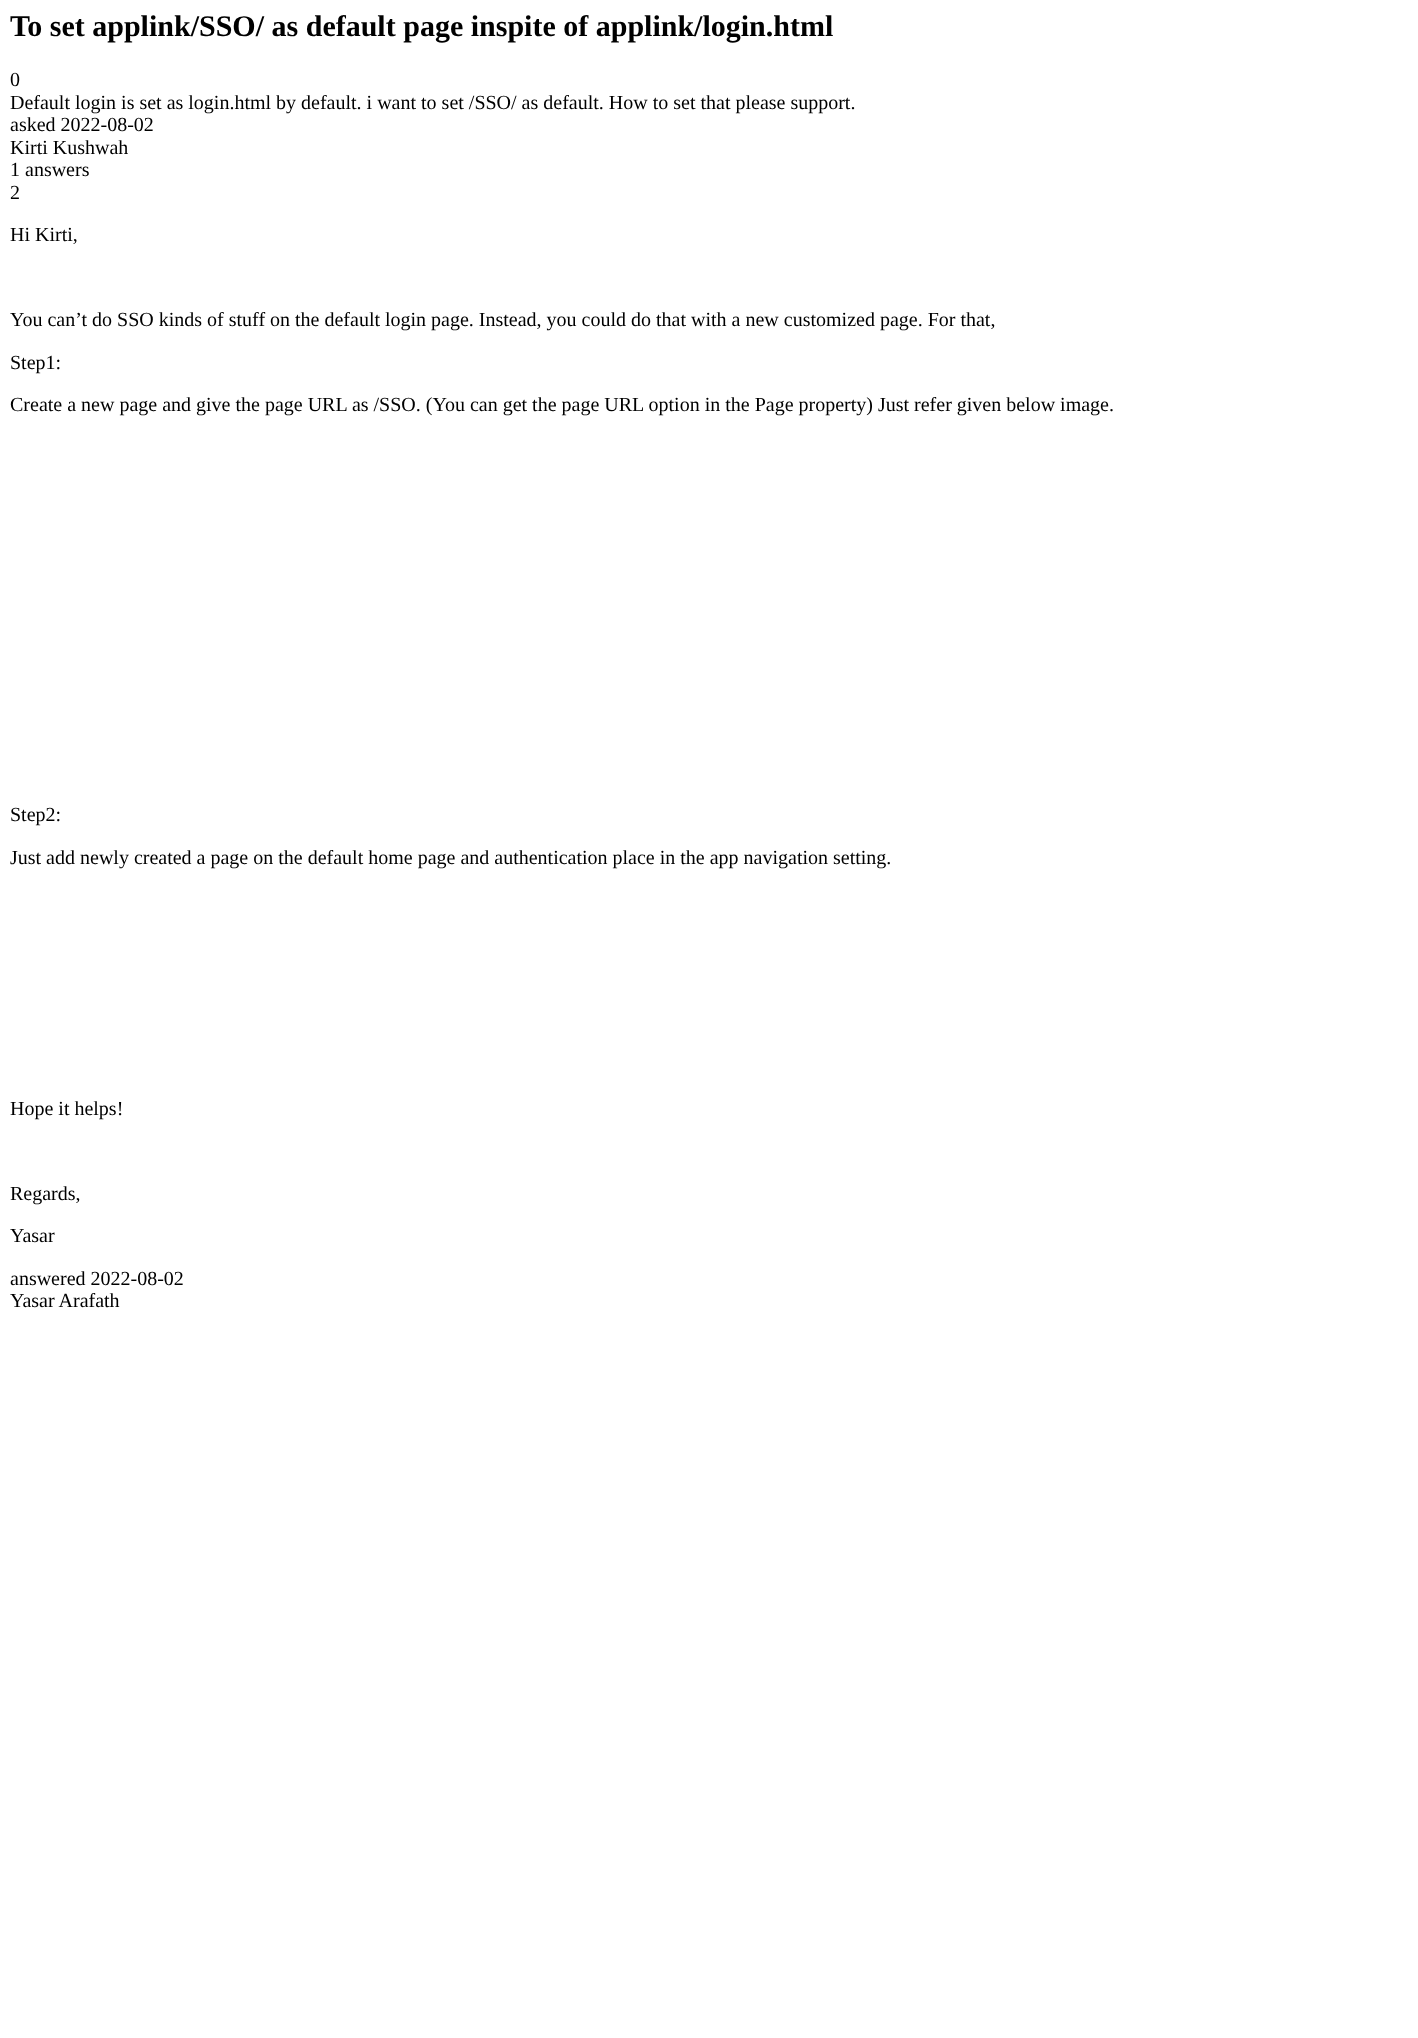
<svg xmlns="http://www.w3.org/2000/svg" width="1418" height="2038">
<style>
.a{font:bold 30px Liberation Serif;fill:#000}
.b{font:20px Liberation Serif;fill:#000}
</style>
<rect width="100%" height="100%" fill="#fff"/>
<text class="a" x="10" y="36">To set applink/SSO/ as default page inspite of applink/login.html</text>
<text class="b" x="10" y="86">0</text>
<text class="b" x="10" y="109">Default login is set as login.html by default. i want to set /SSO/ as default. How to set that please support.</text>
<text class="b" x="10" y="131">asked 2022-08-02</text>
<text class="b" x="10" y="154">Kirti Kushwah</text>
<text class="b" x="10" y="176">1 answers</text>
<text class="b" x="10" y="199">2</text>
<text class="b" x="10" y="241">Hi Kirti,</text>
<text class="b" x="10" y="326">You can’t do SSO kinds of stuff on the default login page. Instead, you could do that with a new customized page. For that,</text>
<text class="b" x="10" y="369">Step1:</text>
<text class="b" x="10" y="411">Create a new page and give the page URL as /SSO. (You can get the page URL option in the Page property) Just refer given below image.</text>
<text class="b" x="10" y="821">Step2:</text>
<text class="b" x="10" y="864">Just add newly created a page on the default home page and authentication place in the app navigation setting.</text>
<text class="b" x="10" y="1115">Hope it helps!</text>
<text class="b" x="10" y="1200">Regards,</text>
<text class="b" x="10" y="1242">Yasar</text>
<text class="b" x="10" y="1285">answered 2022-08-02</text>
<text class="b" x="10" y="1307">Yasar Arafath</text>
</svg>
